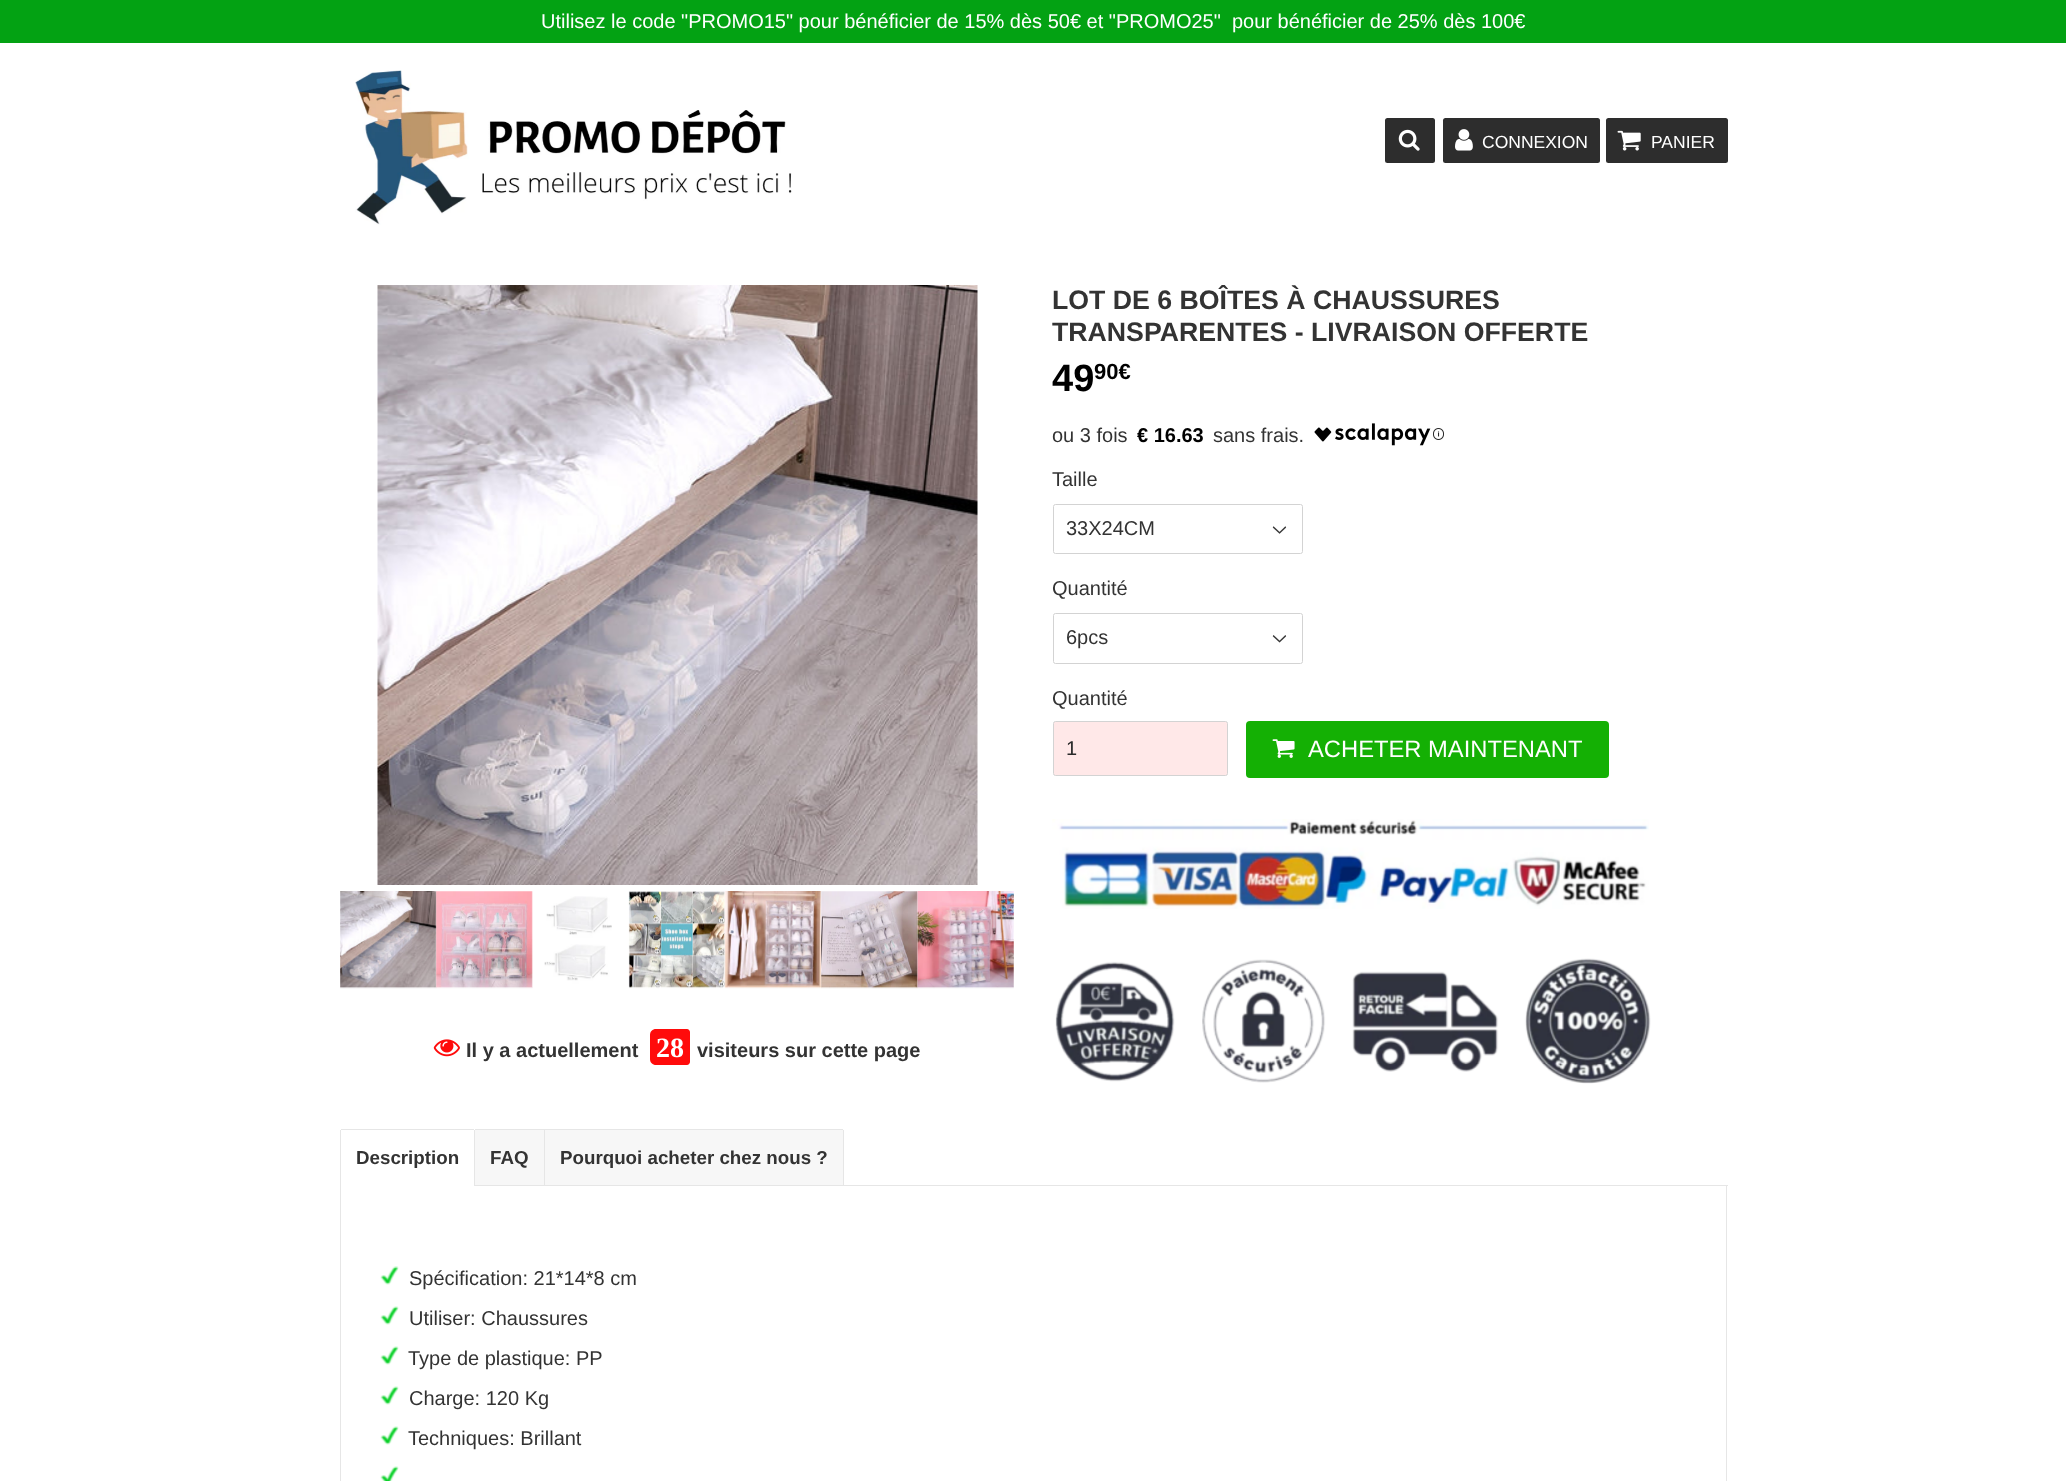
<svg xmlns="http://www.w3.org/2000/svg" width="2066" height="1481">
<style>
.a{font:20px Liberation Sans;fill:#fff}
.b{font:17.5px Liberation Sans;fill:#fff}
.c{font:bold 26.7px Liberation Sans;fill:#333}
.d{font:bold 38px Liberation Sans;fill:#000}
.e{font:bold 22px Liberation Sans;fill:#000}
.f{font:20px Liberation Sans;fill:#333}
.g{font:bold 20px Liberation Sans;fill:#000}
.h{font:20px Liberation Sans;fill:#2b2b2b}
.i{font:23.75px Liberation Sans;fill:#fff}
.j{font:bold 20px Liberation Sans;fill:#333}
.k{font:bold 28px Liberation Serif;fill:#fff}
.l{font:bold 18.75px Liberation Sans;fill:#333}
</style>
<rect width="100%" height="100%" fill="#fff"/>
<path fill="#03a213" d="M0 0h2066v43H0z"/>
<image href="1.png" x="355" y="70" width="437" height="155"/>
<rect fill="#2d2d2d" x="1385" y="118" width="50" height="45" rx="2.5"/>
<image href="2.png" x="1398" y="129" width="22" height="22"/>
<rect fill="#2d2d2d" x="1443" y="118" width="157" height="45" rx="2.5"/>
<image href="3.png" x="1455" y="129" width="18" height="22"/>
<rect fill="#2d2d2d" x="1606" y="118" width="122" height="45" rx="2.5"/>
<image href="4.png" x="1617" y="130" width="24" height="21"/>
<image href="5.png" x="1314" y="423" width="117" height="23"/>
<image href="6.png" x="1433" y="428" width="11" height="12"/>
<image href="7.png" x="1272" y="526" width="15" height="8"/>
<rect fill="none" stroke="#d3d3d3" x="1053.5" y="504.5" width="249" height="49" rx="2"/>
<image href="8.png" x="1272" y="635" width="15" height="8"/>
<rect fill="none" stroke="#d3d3d3" x="1053.5" y="613.5" width="249" height="50" rx="2"/>
<rect fill="#ffe8e8" stroke="#d3d3d3" x="1053.5" y="721.5" width="174" height="54" rx="2"/>
<rect fill="#14b004" x="1246" y="721" width="363" height="57" rx="4"/>
<image href="9.png" x="1272" y="739" width="23" height="19"/>
<image href="10.png" x="1052" y="819" width="597" height="90"/>
<image href="11.png" x="1055" y="958" width="596" height="126"/>
<image href="12.png" x="377" y="285" width="601" height="600"/>
<image href="13.png" x="340" y="891" width="97" height="98"/>
<image href="14.png" x="436" y="891" width="97" height="98"/>
<image href="15.png" x="531" y="891" width="81" height="96"/>
<image href="16.png" x="628" y="891" width="97" height="98"/>
<image href="17.png" x="724" y="891" width="98" height="98"/>
<image href="18.png" x="821" y="891" width="97" height="98"/>
<image href="19.png" x="916" y="891" width="98" height="98"/>
<image href="20.png" x="433" y="1039" width="27" height="18"/>
<path fill="#ff0b0b" d="M656 1029h28v36h-28c-3.5 0-6-2.5-6-6v-24c0-3.5 2.5-6 6-6z"/>
<path fill="#ff0b0b" d="M684 1029h3c1.5 0 3 1.5 3 3v30c0 1.5-1.5 3-3 3h-3z"/>
<path fill="#e6e6e6" d="M475 1185h1253v1H475z"/>
<path fill="#e6e6e6" d="M341 1129h133v1H341z"/>
<path fill="#e6e6e6" d="M474 1130h1v56H474z"/>
<path fill="#e6e6e6" d="M340 1130h1v351H340z"/>
<path fill="#f7f7f7" d="M475 1130h69v55H475z"/>
<path fill="#e6e6e6" d="M475 1129h70v1H475z"/>
<path fill="#e6e6e6" d="M544 1129h1v56H544z"/>
<path fill="#f7f7f7" d="M545 1129h296.5c1.5 0 2.5 1 2.5 2.5v53.5h-299z"/>
<path fill="#e6e6e6" d="M545 1129h298v1H545z"/>
<path fill="#e6e6e6" d="M843 1130h1v55H843z"/>
<path fill="#e6e6e6" d="M1726 1186h1v295H1726z"/>
<image href="21.png" x="380" y="1266" width="19" height="19"/>
<image href="22.png" x="380" y="1306" width="19" height="19"/>
<image href="22.png" x="380" y="1346" width="19" height="19"/>
<image href="22.png" x="380" y="1386" width="19" height="19"/>
<image href="22.png" x="380" y="1426" width="19" height="19"/>
<image href="23.png" x="380" y="1466" width="19" height="15"/>
<text class="a" xml:space="preserve" x="541" y="28">Utilisez le code "PROMO15" pour bénéficier de 15% dès 50€ et "PROMO25"  pour bénéficier de 25% dès 100€</text>
<text class="b" x="1482" y="148">CONNEXION</text>
<text class="b" x="1651" y="148">PANIER</text>
<text class="c" x="1052" y="309">LOT DE 6 BOÎTES À CHAUSSURES</text>
<text class="c" x="1052" y="341">TRANSPARENTES - LIVRAISON OFFERTE</text>
<text class="d" x="1052" y="391">49</text>
<text class="e" x="1094" y="379">90€</text>
<text class="f" x="1052" y="442">ou 3 fois</text>
<text class="g" x="1137" y="442">€ 16.63</text>
<text class="f" x="1213" y="442">sans frais.</text>
<text class="f" x="1052" y="486">Taille</text>
<text class="f" x="1066" y="535">33X24CM</text>
<text class="f" x="1052" y="595">Quantité</text>
<text class="f" x="1066" y="644">6pcs</text>
<text class="f" x="1052" y="705">Quantité</text>
<text class="h" x="1066" y="755">1</text>
<text class="i" x="1308" y="757">ACHETER MAINTENANT</text>
<text class="j" x="466" y="1057">Il y a actuellement</text>
<text class="k" x="656" y="1057">28</text>
<text class="j" x="697" y="1057">visiteurs sur cette page</text>
<text class="l" x="356" y="1164">Description</text>
<text class="l" x="490" y="1164">FAQ</text>
<text class="l" x="560" y="1164">Pourquoi acheter chez nous ?</text>
<text class="f" x="409" y="1285">Spécification: 21*14*8 cm</text>
<text class="f" x="409" y="1325">Utiliser: Chaussures</text>
<text class="f" x="408" y="1365">Type de plastique: PP</text>
<text class="f" x="409" y="1405">Charge: 120 Kg</text>
<text class="f" x="408" y="1445">Techniques: Brillant</text>
</svg>
